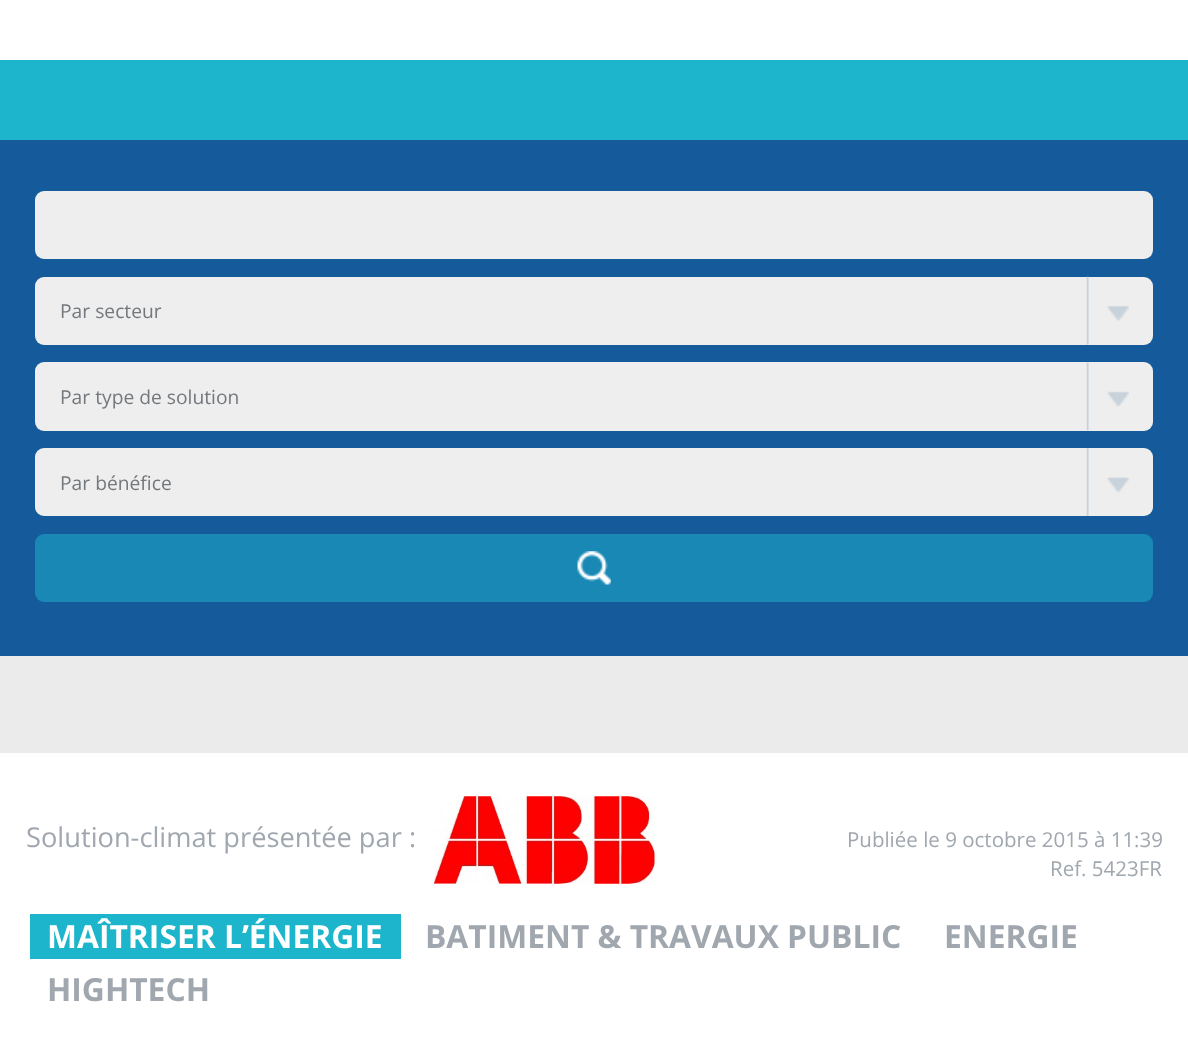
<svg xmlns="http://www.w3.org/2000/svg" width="1188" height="1049">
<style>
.a{font:19.25px Open Sans;fill:#73787d}
.b{font:27.25px Open Sans;fill:#a0a7ae}
.c{font:20.5px Open Sans;fill:#a0a7ae}
.d{font:bold 31.8px Open Sans;fill:#fff}
.e{font:bold 31.8px Open Sans;fill:#a0a7ae}
</style>
<rect width="100%" height="100%" fill="#ebebeb"/>
<path fill="#fff" d="M0 0h1188v60H0z"/>
<path fill="#1cb5cb" d="M0 60h1188v80H0z"/>
<path fill="#155b9c" d="M0 140h1188v516H0z"/>
<rect fill="#eee" x="35" y="191" width="1118" height="68" rx="9"/>
<rect fill="#eee" x="35" y="277" width="1118" height="68" rx="9"/>
<image href="1.png" x="1086" y="276" width="43" height="69"/>
<rect fill="#eee" x="35" y="362" width="1118" height="69" rx="9"/>
<image href="2.png" x="1086" y="362" width="43" height="69"/>
<rect fill="#eee" x="35" y="448" width="1118" height="68" rx="9"/>
<image href="3.png" x="1086" y="448" width="44" height="69"/>
<rect fill="#1988b4" x="35" y="534" width="1118" height="68" rx="9"/>
<image href="4.png" x="577" y="551" width="34" height="34"/>
<path fill="#fff" d="M0 753h1188v296H0z"/>
<image href="5.png" x="434" y="796" width="221" height="88"/>
<path fill="#1cb5cb" d="M30 914h371v45H30z"/>
<text class="a" x="60" y="318">Par secteur</text>
<text class="a" x="60" y="404">Par type de solution</text>
<text class="a" x="60" y="490">Par bénéfice</text>
<text class="b" x="26" y="847">Solution-climat présentée par :</text>
<text class="c" x="847" y="847">Publiée le 9 octobre 2015 à 11:39</text>
<text class="c" x="1050" y="876">Ref. 5423FR</text>
<text class="d" x="47" y="948">MAÎTRISER L’ÉNERGIE</text>
<text class="e" x="425" y="948">BATIMENT &amp; TRAVAUX PUBLIC</text>
<text class="e" x="944" y="948">ENERGIE</text>
<text class="e" x="47" y="1001">HIGHTECH</text>
</svg>
